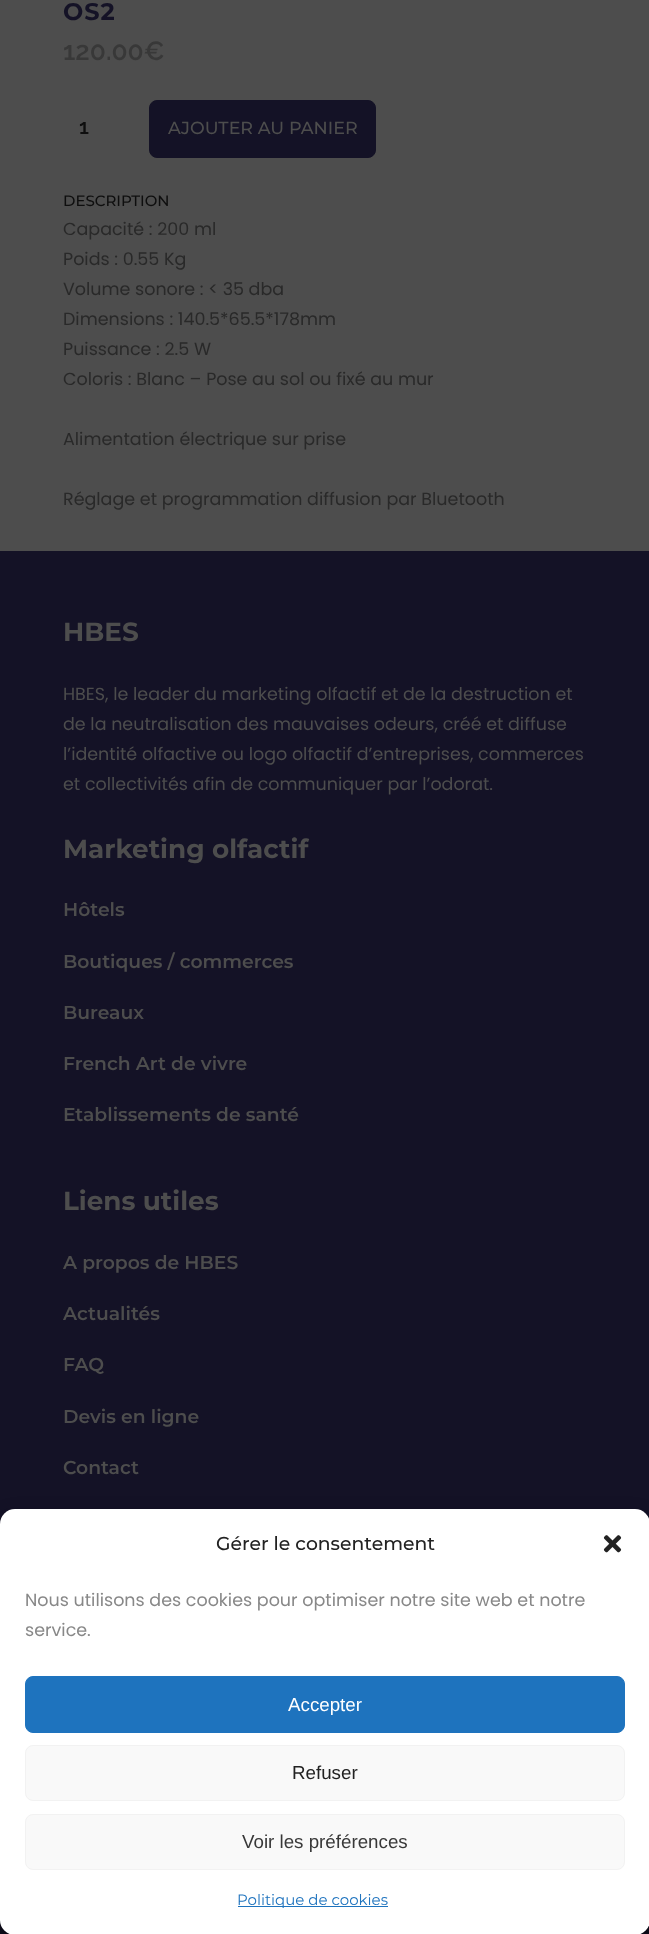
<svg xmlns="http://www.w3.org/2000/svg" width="649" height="1934">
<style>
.a{font:bold 24px Montserrat;letter-spacing:1px;fill:#141226}
.b{font:600 26.25px Raleway;fill:#383838}
.c{font:600 21px Raleway;fill:#0e0e0e}
.d{font:500 17.5px Montserrat;fill:#4d4d4d}
.e{font:500 15px Montserrat;fill:#0e0e0e}
.f{font:17.5px Poppins;fill:#292929}
.g{font:bold 26.25px Montserrat;fill:#4d4d4d}
.h{font:17.5px Poppins;fill:#4d4d4d}
.i{font:600 18.75px Montserrat;fill:#4d4d4d}
.j{font:500 18.75px Montserrat;fill:#222}
.k{font:17.5px Poppins;fill:#888}
.l{font:18.75px Liberation Sans;fill:#fff}
.m{font:18.75px Liberation Sans;fill:#222}
.n{font:18.75px Liberation Sans;fill:#383838}
.o{font:15px Montserrat;fill:#1e73be}
</style>
<rect width="100%" height="100%" fill="#4d4d4d"/>
<rect fill="#141226" stroke="#141226" x="149.5" y="100.5" width="226" height="57" rx="7.5"/>
<path fill="#141226" d="M0 551h649v973H0z"/>
<path fill="#100e1e" d="M0 1920h649v14H0z"/>
<rect fill="#0000003b" filter="blur(4px)" y="1516" width="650" height="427" rx="15"/>
<rect fill="#00000030" filter="blur(12.5px)" y="1521" width="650" height="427" rx="15"/>
<rect fill="#fff" y="1509" width="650" height="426" rx="15"/>
<image href="1.png" x="603" y="1535" width="19" height="18"/>
<rect fill="#1e73be" stroke="#1e73be" x="25.5" y="1676.5" width="599" height="56" rx="7.5"/>
<rect fill="#f9f9f9" stroke="#f2f2f2" x="25.5" y="1745.5" width="599" height="55" rx="7.5"/>
<rect fill="#f9f9f9" stroke="#f2f2f2" x="25.5" y="1814.5" width="599" height="55" rx="7.5"/>
<path fill="#1e73be" d="M238 1906h150v1H238z"/>
<text class="a" x="63" y="20">OS2</text>
<text class="b" x="63" y="60">120.00€</text>
<text class="c" x="79" y="134">1</text>
<text class="d" x="168" y="134">AJOUTER AU PANIER</text>
<text class="e" x="63" y="206">DESCRIPTION</text>
<text class="f" x="63" y="235">Capacité : 200 ml</text>
<text class="f" x="63" y="265">Poids : 0.55 Kg</text>
<text class="f" x="63" y="295">Volume sonore : &lt; 35 dba</text>
<text class="f" x="63" y="325">Dimensions : 140.5*65.5*178mm</text>
<text class="f" x="63" y="355">Puissance : 2.5 W</text>
<text class="f" x="63" y="385">Coloris : Blanc – Pose au sol ou fixé au mur</text>
<text class="f" x="63" y="445">Alimentation électrique sur prise</text>
<text class="f" x="63" y="505">Réglage et programmation diffusion par Bluetooth</text>
<text class="g" x="63" y="641">HBES</text>
<text class="h" x="63" y="700">HBES, le leader du marketing olfactif et de la destruction et</text>
<text class="h" x="63" y="730">de la neutralisation des mauvaises odeurs, créé et diffuse</text>
<text class="h" x="63" y="760">l’identité olfactive ou logo olfactif d’entreprises, commerces</text>
<text class="h" x="63" y="790">et collectivités afin de communiquer par l’odorat.</text>
<text class="g" x="63" y="858">Marketing olfactif</text>
<text class="i" x="63" y="916">Hôtels</text>
<text class="i" x="63" y="968">Boutiques / commerces</text>
<text class="i" x="63" y="1019">Bureaux</text>
<text class="i" x="63" y="1070">French Art de vivre</text>
<text class="i" x="63" y="1121">Etablissements de santé</text>
<text class="g" x="63" y="1210">Liens utiles</text>
<text class="i" x="63" y="1269">A propos de HBES</text>
<text class="i" x="63" y="1320">Actualités</text>
<text class="i" x="63" y="1371">FAQ</text>
<text class="i" x="63" y="1423">Devis en ligne</text>
<text class="i" x="63" y="1474">Contact</text>
<text class="j" x="216" y="1550">Gérer le consentement</text>
<text class="k" x="25" y="1606">Nous utilisons des cookies pour optimiser notre site web et notre</text>
<text class="k" x="25" y="1636">service.</text>
<text class="l" x="288" y="1711">Accepter</text>
<text class="m" x="292" y="1779">Refuser</text>
<text class="n" x="242" y="1848">Voir les préférences</text>
<text class="o" x="237" y="1905">Politique de cookies</text>
</svg>
